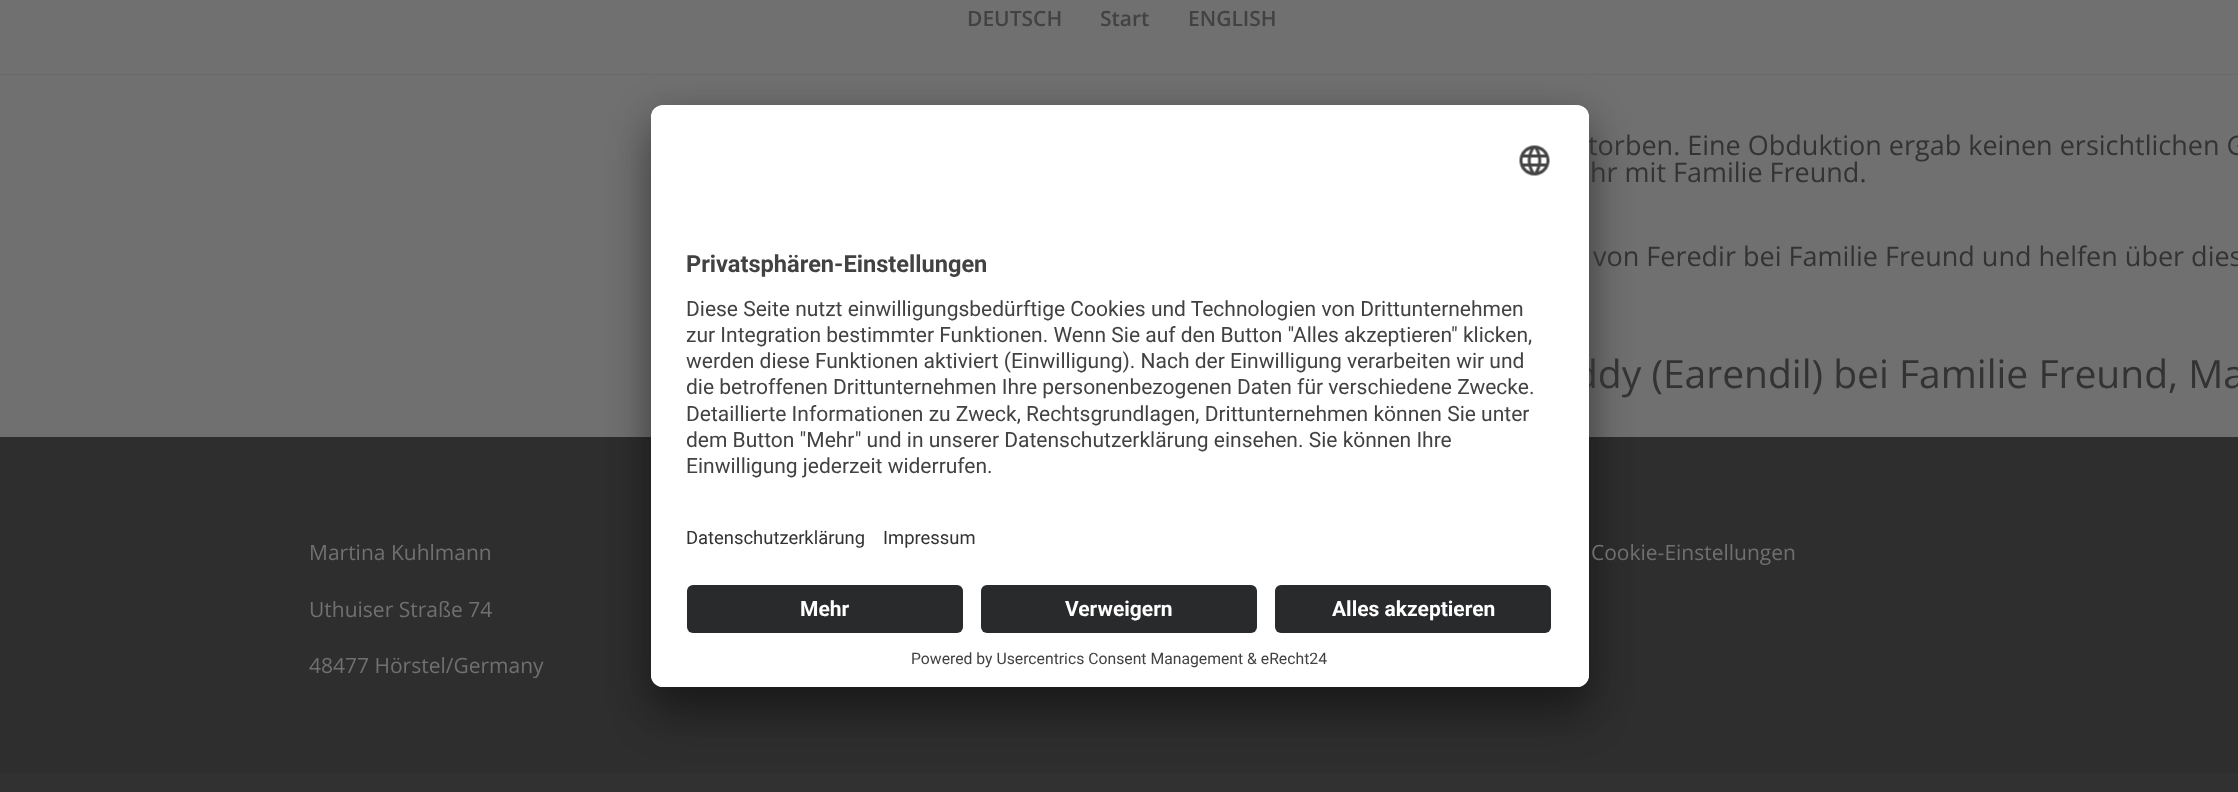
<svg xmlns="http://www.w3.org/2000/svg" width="2238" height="792">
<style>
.a{font:600 21px Open Sans;fill:#424242}
.b{font:27px Open Sans;fill:#333}
.c{font:39px Open Sans;fill:#333}
.d{font:21px Open Sans;fill:#707070}
.e{font:bold 23.6px Roboto;fill:#424242}
.f{font:21px Roboto;fill:#424242}
.g{font:18.4px Roboto;fill:#333}
.h{font:bold 21px Roboto;fill:#fff}
.i{font:15.75px Roboto;fill:#424242}
</style>
<defs>
<clipPath id="clip1"><rect x="651" y="105" width="938" height="582" rx="12"/></clipPath>
<clipPath id="clip2"><path d="M663 105h914c6.5 0 12 5.5 12 12v456h-938v-456c0-6.5 5.5-12 12-12z"/></clipPath>
</defs>
<rect width="100%" height="100%" fill="#2e2e2e"/>
<path fill="#696969" d="M0 74h2238v1H0z"/>
<path fill="#707070" d="M0 0h2238v74H0z"/>
<path fill="#707070" d="M0 75h2238v362H0z"/>
<path fill="#313131" d="M0 773h2238v19H0z"/>
<rect fill="#0000004d" filter="blur(21px)" x="651" y="135" width="938" height="582" rx="12"/>
<rect fill="#00000038" filter="blur(19.5px)" x="651" y="113" width="938" height="582" rx="12"/>
<text class="a" x="967" y="26">DEUTSCH</text>
<text class="a" x="1100" y="26">Start</text>
<text class="a" x="1188" y="26">ENGLISH</text>
<text class="b" x="1588" y="155">torben. Eine Obduktion ergab keinen ersichtlichen G</text>
<text class="b" x="1590" y="182">hr mit Familie Freund.</text>
<text class="b" x="1593" y="266">von Feredir bei Familie Freund und helfen über dies</text>
<text class="c" x="1574" y="388">ddy (Earendil) bei Familie Freund, Ma</text>
<text class="d" x="309" y="560">Martina Kuhlmann</text>
<text class="d" x="309" y="617">Uthuiser Straße 74</text>
<text class="d" x="309" y="673">48477 Hörstel/Germany</text>
<text class="d" x="1591" y="560">Cookie-Einstellungen</text>
<rect fill="#fff" x="651" y="105" width="938" height="582" rx="12"/>
<g clip-path="url(#clip1)">
<g clip-path="url(#clip2)">
<path fill="#fff" d="M651 107h938v466H651z"/>
</g>
</g>
<image href="1.png" x="1519" y="145" width="31" height="31"/>
<text class="e" x="686" y="272">Privatsphären-Einstellungen</text>
<text class="f" x="686" y="316">Diese Seite nutzt einwilligungsbedürftige Cookies und Technologien von Drittunternehmen</text>
<text class="f" x="686" y="342">zur Integration bestimmter Funktionen. Wenn Sie auf den Button "Alles akzeptieren" klicken,</text>
<text class="f" x="686" y="368">werden diese Funktionen aktiviert (Einwilligung). Nach der Einwilligung verarbeiten wir und</text>
<text class="f" x="686" y="394">die betroffenen Drittunternehmen Ihre personenbezogenen Daten für verschiedene Zwecke.</text>
<text class="f" x="686" y="421">Detaillierte Informationen zu Zweck, Rechtsgrundlagen, Drittunternehmen können Sie unter</text>
<text class="f" x="686" y="447">dem Button "Mehr" und in unserer Datenschutzerklärung einsehen. Sie können Ihre</text>
<text class="f" x="686" y="473">Einwilligung jederzeit widerrufen.</text>
<text class="g" x="686" y="544">Datenschutzerklärung</text>
<text class="g" x="883" y="544">Impressum</text>
<path fill="#fff" d="M651 573h938v102c0 6.5-5.5 12-12 12h-914c-6.5 0-12-5.5-12-12z"/>
<rect fill="#292a2b" x="687" y="585" width="276" height="48" rx="6"/>
<text class="h" x="800" y="616">Mehr</text>
<rect fill="#292a2b" x="981" y="585" width="276" height="48" rx="6"/>
<text class="h" x="1065" y="616">Verweigern</text>
<rect fill="#292a2b" x="1275" y="585" width="276" height="48" rx="6"/>
<text class="h" x="1332" y="616">Alles akzeptieren</text>
<text class="i" x="911" y="664">Powered by Usercentrics Consent Management &amp; eRecht24</text>
</svg>
